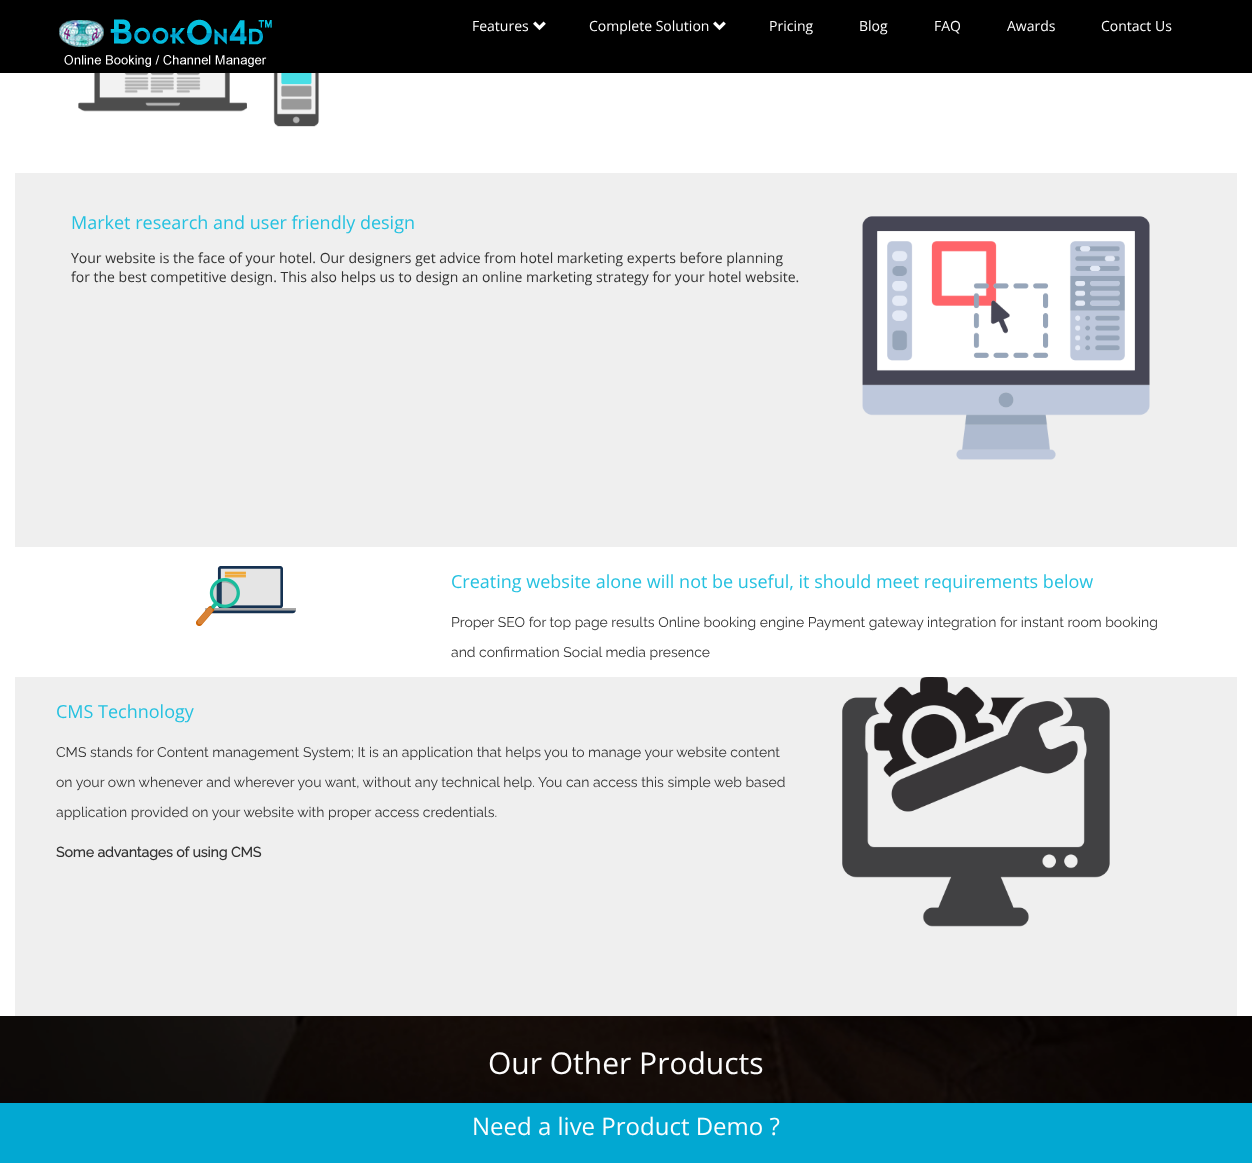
<svg xmlns="http://www.w3.org/2000/svg" width="1252" height="1163">
<style>
.a{font:14px Open Sans;fill:#fdfdfd}
.b{font:18px Open Sans;fill:#25c1e0}
.c{font:14px Open Sans;fill:#333}
.d{font:100 14px Raleway;fill:#333}
.e{font:bold 14px Raleway;fill:#333}
.f{font:30px Open Sans;fill:#fdfdfd}
.g{font:24px Open Sans;fill:#fdfdfd}
</style>
<rect width="100%" height="100%" fill="#fff"/>
<path fill="#000" d="M0 0h1252v73H0z"/>
<image href="1.png" x="59" y="19" width="213" height="48"/>
<image href="2.png" x="533" y="21" width="13" height="10"/>
<image href="2.png" x="713" y="21" width="13" height="10"/>
<image href="3.png" x="78" y="73" width="305" height="54"/>
<path fill="#efefef" d="M15 173h1222v374H15z"/>
<image href="4.png" x="862" y="216" width="288" height="244"/>
<image href="5.png" x="196" y="566" width="100" height="60"/>
<path fill="#efefef" d="M15 677h1222v339H15z"/>
<image href="6.png" x="842" y="677" width="268" height="250"/>
<image href="7.png" x="0" y="1016" width="1252" height="87"/>
<path fill="#02a8d2" d="M0 1103h1252v60H0z"/>
<text class="a" x="472" y="31">Features</text>
<text class="a" x="589" y="31">Complete Solution</text>
<text class="a" x="769" y="31">Pricing</text>
<text class="a" x="859" y="31">Blog</text>
<text class="a" x="934" y="31">FAQ</text>
<text class="a" x="1007" y="31">Awards</text>
<text class="a" x="1101" y="31">Contact Us</text>
<text class="b" x="71" y="229">Market research and user friendly design</text>
<text class="c" x="71" y="263">Your website is the face of your hotel. Our designers get advice from hotel marketing experts before planning</text>
<text class="c" x="71" y="282">for the best competitive design. This also helps us to design an online marketing strategy for your hotel website.</text>
<text class="b" x="451" y="588">Creating website alone will not be useful, it should meet requirements below</text>
<text class="d" x="451" y="627">Proper SEO for top page results Online booking engine Payment gateway integration for instant room booking</text>
<text class="d" x="451" y="657">and confirmation Social media presence</text>
<text class="b" x="56" y="718">CMS Technology</text>
<text class="d" x="56" y="757">CMS stands for Content management System; It is an application that helps you to manage your website content</text>
<text class="d" x="56" y="787">on your own whenever and wherever you want, without any technical help. You can access this simple web based</text>
<text class="d" x="56" y="817">application provided on your website with proper access credentials.</text>
<text class="e" x="56" y="857">Some advantages of using CMS</text>
<text class="f" x="488" y="1074">Our Other Products</text>
<text class="g" x="472" y="1135">Need a live Product Demo ?</text>
</svg>
